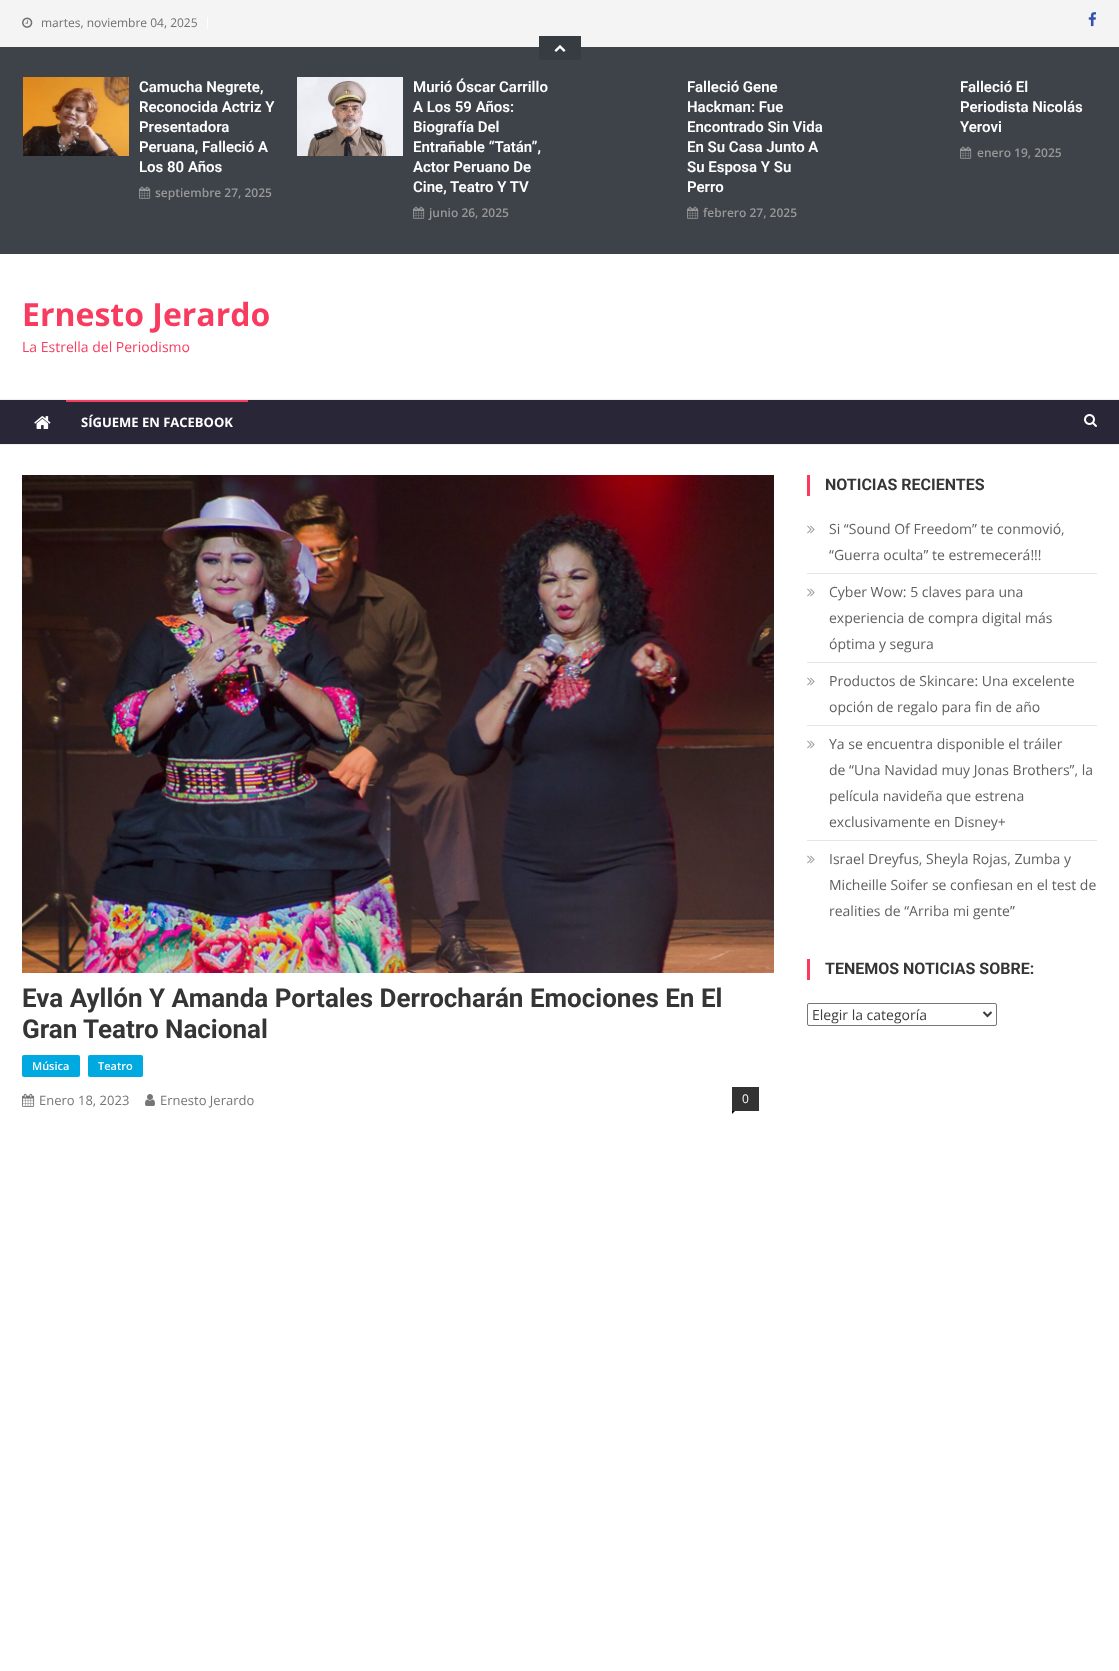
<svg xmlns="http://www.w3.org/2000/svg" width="1119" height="1671">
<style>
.a{font:12px Open Sans;fill:#707070}
.b{font:600 15px Roboto;fill:#fff}
.c{font:600 12px Open Sans;fill:#989898}
.d{font:bold 32px Open Sans;fill:#f83c5f}
.e{font:14px Open Sans;fill:#f83c5f}
.f{font:bold 13px Open Sans;fill:#fff}
.g{font:bold 16px Roboto;fill:#353535}
.h{font:14px Open Sans;fill:#5f5f5f}
.i{font:14px Open Sans;fill:#3d3d3d}
.j{font:bold 26px Roboto;fill:#353535}
.k{font:600 11px Open Sans;fill:#fff}
.l{font:13px Open Sans;fill:#767676}
.m{font:12px Open Sans;fill:#fff}
</style>
<rect width="100%" height="100%" fill="#fff"/>
<path fill="#f4f4f4" d="M0 0h1119v47H0z"/>
<image href="1.png" x="22" y="17" width="11" height="11"/>
<path fill="#fff" d="M207 17h1v12H207z"/>
<image href="2.png" x="1088" y="12" width="9" height="15"/>
<path fill="#3e4349" d="M0 47h1119v207H0z"/>
<path fill="#373c42" d="M539 36h42v21c0 1.5-1.5 3-3 3h-36c-1.5 0-3-1.5-3-3z"/>
<image href="3.png" x="554" y="45" width="12" height="7"/>
<image href="4.png" x="23" y="77" width="106" height="79"/>
<image href="5.png" x="139" y="186" width="12" height="13"/>
<image href="6.png" x="297" y="77" width="106" height="79"/>
<image href="5.png" x="413" y="206" width="12" height="13"/>
<image href="5.png" x="687" y="206" width="12" height="13"/>
<image href="5.png" x="960" y="146" width="12" height="13"/>
<path fill="#292637" d="M0 400h1119v44H0z"/>
<path fill="#eee" d="M0 399h1119v1H0z"/>
<path fill="#eee" d="M0 444h1119v1H0z"/>
<image href="7.png" x="34" y="416" width="17" height="13"/>
<path fill="#f83c5f" d="M66 400h182v2H66z"/>
<image href="8.png" x="1084" y="414" width="13" height="13"/>
<path fill="#f83c5f" d="M807 475h3v21H807z"/>
<path fill="#e6e6e6" d="M807 573h290v1H807z"/>
<image href="9.png" x="807" y="525" width="8" height="9"/>
<path fill="#e6e6e6" d="M807 662h290v1H807z"/>
<image href="9.png" x="807" y="588" width="8" height="9"/>
<path fill="#e6e6e6" d="M807 725h290v1H807z"/>
<image href="9.png" x="807" y="677" width="8" height="9"/>
<path fill="#e6e6e6" d="M807 840h290v1H807z"/>
<image href="9.png" x="807" y="740" width="8" height="9"/>
<image href="9.png" x="807" y="855" width="8" height="9"/>
<path fill="#f83c5f" d="M807 959h3v21H807z"/>
<rect fill="none" stroke="#767676" x="807.5" y="1003.5" width="189" height="22" rx="1.5"/>
<path fill="none" stroke="#3d3d3d" stroke-width="2" d="M983.5 1012l4 4l4-4"/>
<image href="10.png" x="22" y="475" width="752" height="498"/>
<rect fill="#00a9e0" x="22" y="1055" width="58" height="22" rx="2"/>
<rect fill="#00a9e0" x="88" y="1055" width="55" height="22" rx="2"/>
<image href="11.png" x="22" y="1093" width="13" height="14"/>
<image href="12.png" x="145" y="1094" width="10" height="12"/>
<path fill="#333" d="M732 1087h27v24H732z"/>
<path fill="#000" d="M732 1111h3l-3 3z"/>
<text class="a" x="41" y="27">martes, noviembre 04, 2025</text>
<text class="b" x="139" y="92">Camucha Negrete,</text>
<text class="b" x="139" y="112">Reconocida Actriz Y</text>
<text class="b" x="139" y="132">Presentadora</text>
<text class="b" x="139" y="152">Peruana, Falleció A</text>
<text class="b" x="139" y="172">Los 80 Años</text>
<text class="c" x="155" y="197">septiembre 27, 2025</text>
<text class="b" x="413" y="92">Murió Óscar Carrillo</text>
<text class="b" x="413" y="112">A Los 59 Años:</text>
<text class="b" x="413" y="132">Biografía Del</text>
<text class="b" x="413" y="152">Entrañable “Tatán”,</text>
<text class="b" x="413" y="172">Actor Peruano De</text>
<text class="b" x="413" y="192">Cine, Teatro Y TV</text>
<text class="c" x="429" y="217">junio 26, 2025</text>
<text class="b" x="687" y="92">Falleció Gene</text>
<text class="b" x="687" y="112">Hackman: Fue</text>
<text class="b" x="687" y="132">Encontrado Sin Vida</text>
<text class="b" x="687" y="152">En Su Casa Junto A</text>
<text class="b" x="687" y="172">Su Esposa Y Su</text>
<text class="b" x="687" y="192">Perro</text>
<text class="c" x="703" y="217">febrero 27, 2025</text>
<text class="b" x="960" y="92">Falleció El</text>
<text class="b" x="960" y="112">Periodista Nicolás</text>
<text class="b" x="960" y="132">Yerovi</text>
<text class="c" x="977" y="157">enero 19, 2025</text>
<text class="d" x="22" y="326">Ernesto Jerardo</text>
<text class="e" x="22" y="352">La Estrella del Periodismo</text>
<text class="f" x="81" y="427">SÍGUEME EN FACEBOOK</text>
<text class="g" x="825" y="490">NOTICIAS RECIENTES</text>
<text class="h" x="829" y="534">Si “Sound Of Freedom” te conmovió,</text>
<text class="h" x="829" y="560">“Guerra oculta” te estremecerá!!!</text>
<text class="h" x="829" y="597">Cyber Wow: 5 claves para una</text>
<text class="h" x="829" y="623">experiencia de compra digital más</text>
<text class="h" x="829" y="649">óptima y segura</text>
<text class="h" x="829" y="686">Productos de Skincare: Una excelente</text>
<text class="h" x="829" y="712">opción de regalo para fin de año</text>
<text class="h" x="829" y="749">Ya se encuentra disponible el tráiler</text>
<text class="h" x="829" y="775">de “Una Navidad muy Jonas Brothers”, la</text>
<text class="h" x="829" y="801">película navideña que estrena</text>
<text class="h" x="829" y="827">exclusivamente en Disney+</text>
<text class="h" x="829" y="864">Israel Dreyfus, Sheyla Rojas, Zumba y</text>
<text class="h" x="829" y="890">Micheille Soifer se confiesan en el test de</text>
<text class="h" x="829" y="916">realities de “Arriba mi gente”</text>
<text class="g" x="825" y="974">TENEMOS NOTICIAS SOBRE:</text>
<text class="i" x="812" y="1020">Elegir la categoría</text>
<text class="j" x="22" y="1007">Eva Ayllón Y Amanda Portales Derrocharán Emociones En El</text>
<text class="j" x="22" y="1038">Gran Teatro Nacional</text>
<text class="k" x="32" y="1070">Música</text>
<text class="k" x="98" y="1070">Teatro</text>
<text class="l" x="39" y="1105">Enero 18, 2023</text>
<text class="l" x="160" y="1105">Ernesto Jerardo</text>
<text class="m" x="742" y="1103">0</text>
</svg>
